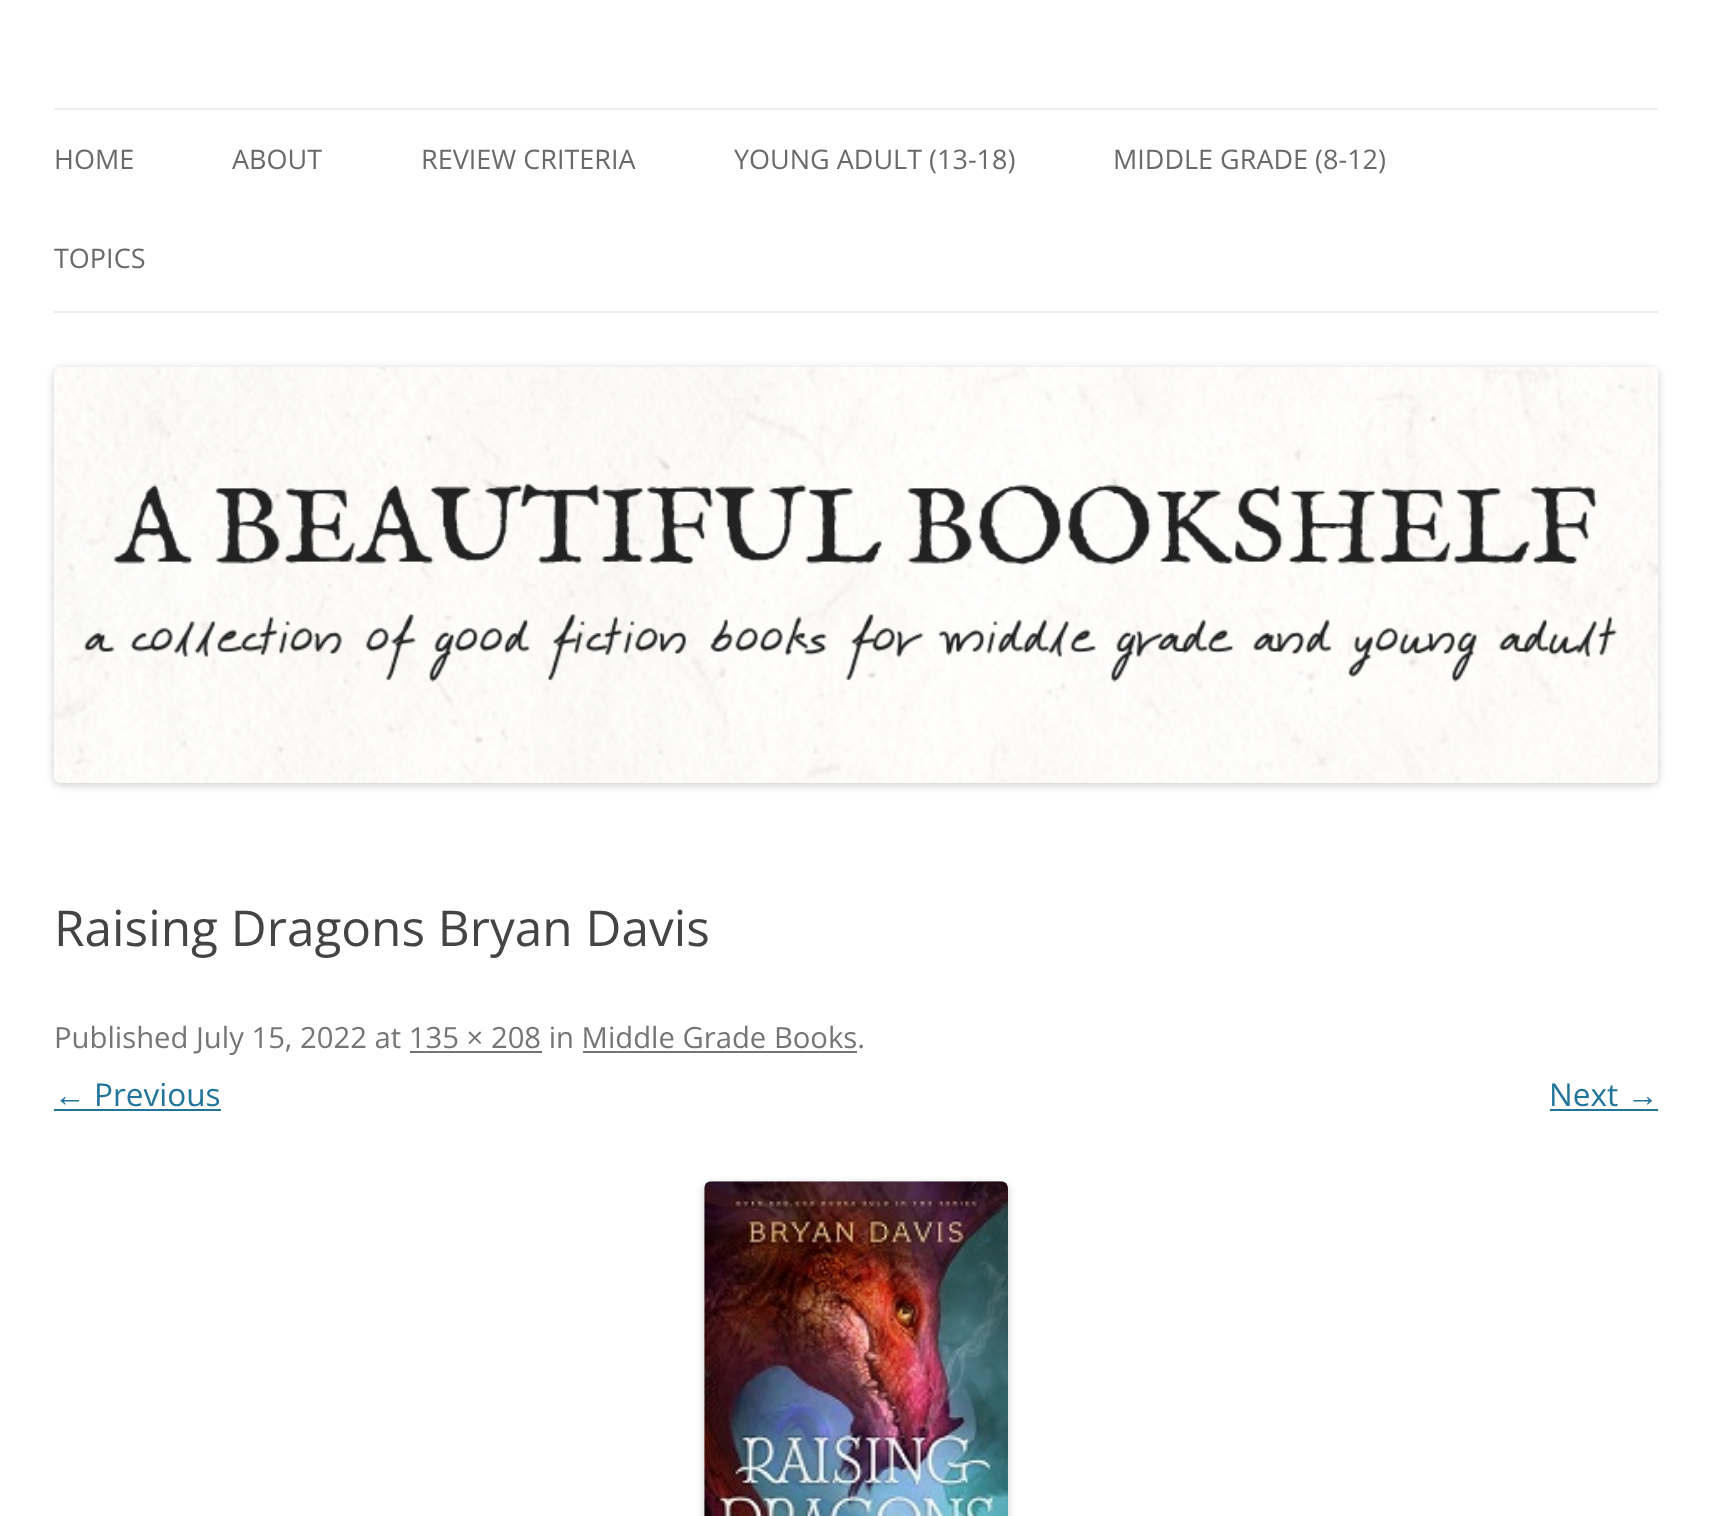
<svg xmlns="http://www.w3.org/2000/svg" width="1712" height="1516">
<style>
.a{font:27px Open Sans;fill:#6a6a6a}
.b{font:49.5px Open Sans;fill:#444}
.c{font:29.25px Open Sans;fill:#757575}
.d{font:31.5px Liberation Sans;fill:#21759b}
.e{font:31.5px Open Sans;fill:#21759b}
</style>
<rect width="100%" height="100%" fill="#fff"/>
<path fill="#ededed" d="M54 108h1604v2H54z"/>
<path fill="#ededed" d="M54 311h1604v2H54z"/>
<rect fill="#00000033" filter="blur(4.5px)" x="54" y="369" width="1604" height="416" rx="7"/>
<image href="1.png" x="54" y="367" width="1604" height="416"/>
<path fill="#757575" d="M410 1051h132v2H410z"/>
<path fill="#757575" d="M583 1051h274v2H583z"/>
<path fill="#21759b" d="M54 1109h167v2H54z"/>
<path fill="#21759b" d="M1550 1109h108v2H1550z"/>
<rect fill="#00000033" filter="blur(4.5px)" x="704" y="1184" width="304" height="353" rx="7"/>
<image href="2.png" x="704" y="1181" width="304" height="335"/>
<text class="a" x="54" y="169">HOME</text>
<text class="a" x="232" y="169">ABOUT</text>
<text class="a" x="421" y="169">REVIEW CRITERIA</text>
<text class="a" x="734" y="169">YOUNG ADULT (13-18)</text>
<text class="a" x="1113" y="169">MIDDLE GRADE (8-12)</text>
<text class="a" x="54" y="268">TOPICS</text>
<text class="b" x="54" y="946">Raising Dragons Bryan Davis</text>
<text class="c" x="54" y="1048">Published July 15, 2022 at 135 × 208 in Middle Grade Books.</text>
<text class="d" x="54" y="1106">←</text>
<text class="e" x="94" y="1106">Previous</text>
<text class="e" x="1549" y="1106">Next</text>
<text class="d" x="1627" y="1106">→</text>
</svg>
